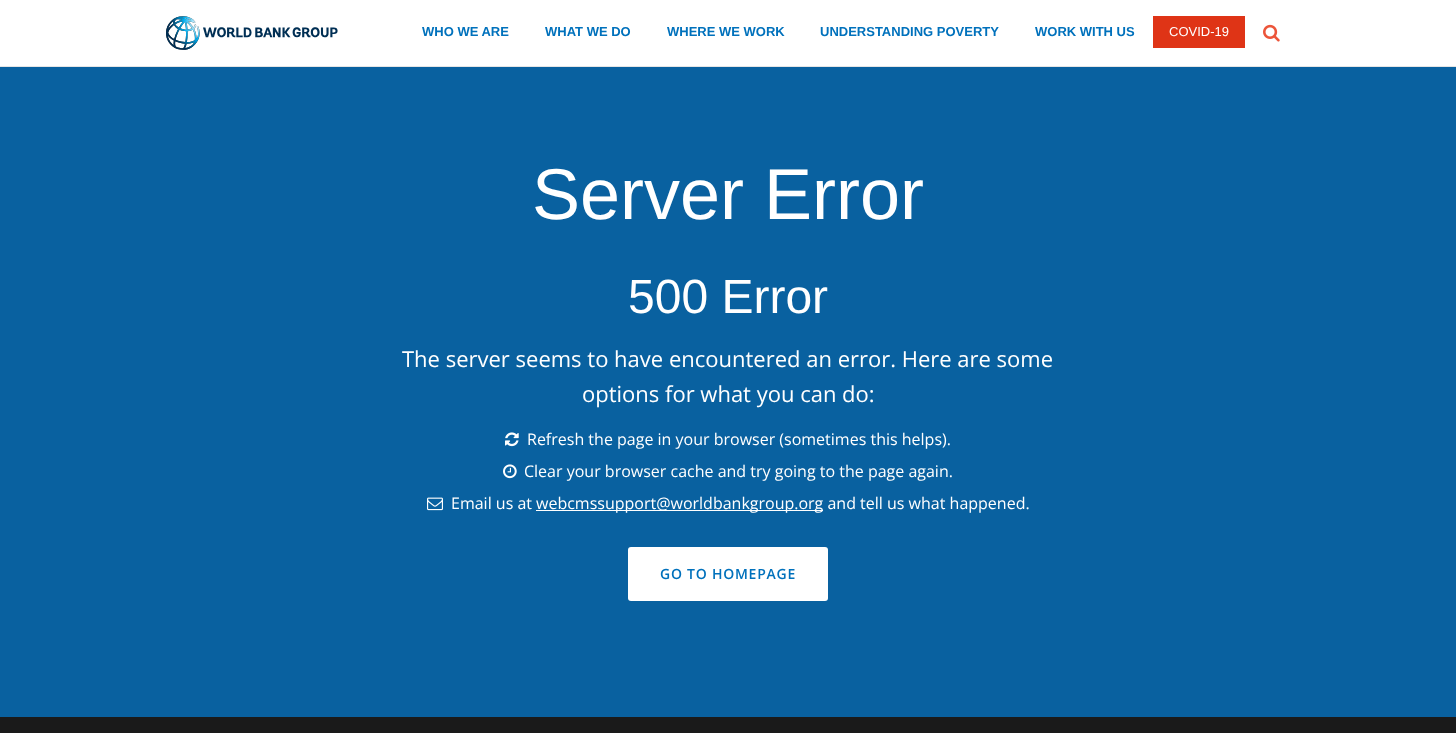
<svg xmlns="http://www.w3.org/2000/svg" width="1456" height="733">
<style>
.a{font:bold 13px Liberation Sans;fill:#0071bc}
.b{font:13px Liberation Sans;fill:#fff}
.c{font:72px Liberation Sans;fill:#fff}
.d{font:48px Liberation Sans;fill:#fff}
.e{font:22px Open Sans;fill:#fff}
.f{font:16px Open Sans;fill:#fff}
.g{font:600 14px Open Sans;letter-spacing:0.75px;fill:#0071bc}
</style>
<rect width="100%" height="100%" fill="#fff"/>
<path fill="#e5e5e5" d="M0 66h1456v1H0z"/>
<image href="1.png" x="166" y="16" width="172" height="34"/>
<path fill="#df3416" d="M1153 16h92v32H1153z"/>
<image href="2.png" x="1263" y="24" width="17" height="18"/>
<path fill="#0961a0" d="M0 67h1456v650H0z"/>
<image href="3.png" x="505" y="432" width="14" height="15"/>
<image href="4.png" x="503" y="464" width="14" height="15"/>
<image href="5.png" x="427" y="497" width="16" height="14"/>
<path fill="#fff" d="M536 510h287v1H536z"/>
<rect fill="#fff" x="628" y="547" width="200" height="54" rx="3"/>
<path fill="#1a1a1a" d="M0 717h1456v16H0z"/>
<text class="a" x="422" y="36">WHO WE ARE</text>
<text class="a" x="545" y="36">WHAT WE DO</text>
<text class="a" x="667" y="36">WHERE WE WORK</text>
<text class="a" x="820" y="36">UNDERSTANDING POVERTY</text>
<text class="a" x="1035" y="36">WORK WITH US</text>
<text class="b" x="1169" y="36">COVID-19</text>
<text class="c" x="532" y="219">Server Error</text>
<text class="d" x="628" y="313">500 Error</text>
<text class="e" x="402" y="367">The server seems to have encountered an error. Here are some</text>
<text class="e" x="582" y="402">options for what you can do:</text>
<text class="f" x="527" y="445">Refresh the page in your browser (sometimes this helps).</text>
<text class="f" x="524" y="477">Clear your browser cache and try going to the page again.</text>
<text class="f" x="451" y="509">Email us at</text>
<text class="f" x="536" y="509">webcmssupport@worldbankgroup.org and tell us what happened.</text>
<text class="g" x="660" y="579">GO TO HOMEPAGE</text>
</svg>
